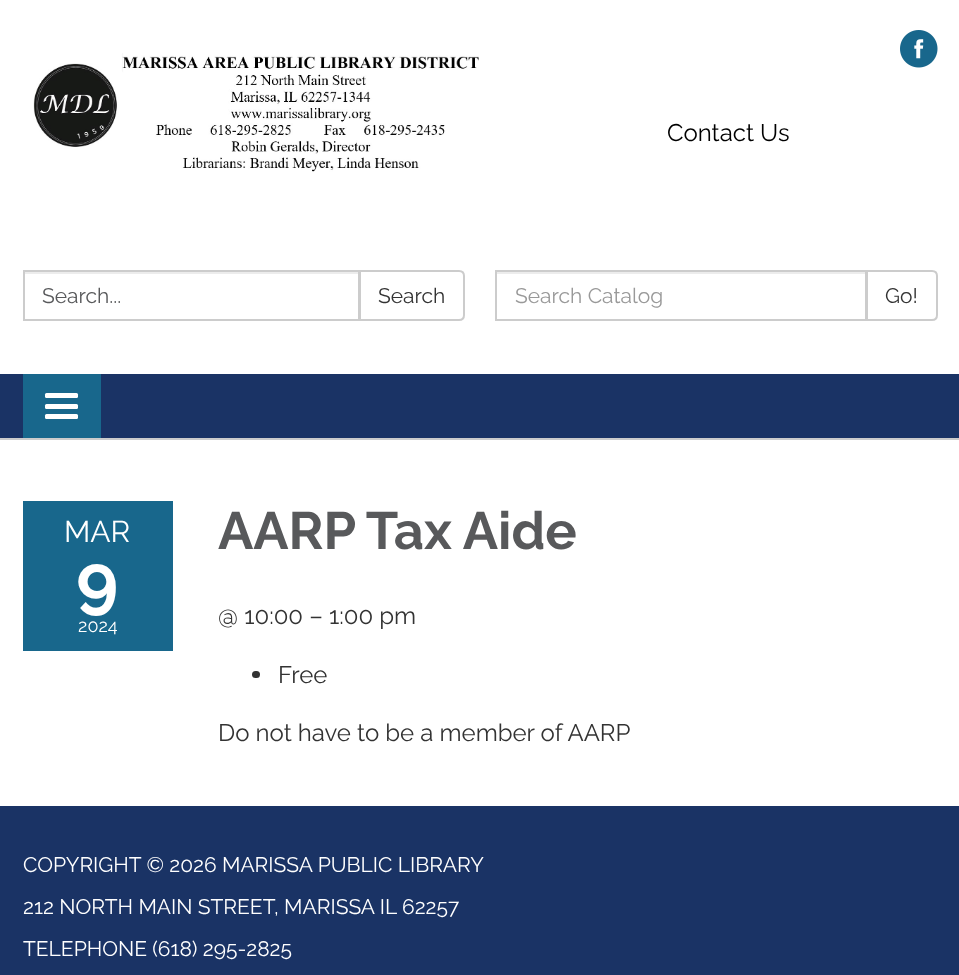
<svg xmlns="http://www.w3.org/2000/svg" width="959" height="975">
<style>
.a{font:24px Raleway;fill:#000}
.b{font:21px Raleway;fill:#58595b}
.c{font:21px Raleway;fill:#333}
.d{font:21px Raleway;fill:#999}
.e{font:30px Raleway;fill:#fff}
.f{font:bold 72px Raleway;fill:#fff}
.g{font:18px Raleway;fill:#fff}
.h{font:bold 52.5px Raleway;fill:#58595b}
.i{font:24px Raleway;fill:#333}
.j{font:21px Raleway;fill:#fff}
</style>
<rect width="100%" height="100%" fill="#1a3365"/>
<path fill="#fff" d="M0 0h959v374H0z"/>
<image href="1.png" x="900" y="30" width="38" height="38"/>
<image href="2.png" x="33" y="53" width="446" height="119"/>
<path fill="#ececec" d="M24 272h335v2H24z"/>
<path fill="none" stroke="#ccc" stroke-width="2" d="M24 271h335v49H24z"/>
<path fill="#fff" stroke="#ccc" stroke-width="2" d="M360 271h99c3 0 5 2 5 5v39c0 3-2 5-5 5h-99z"/>
<path fill="#ececec" d="M497 272h369v2H497z"/>
<path fill="none" stroke="#ccc" stroke-width="2" d="M496 271h370v49H496z"/>
<path fill="#fff" stroke="#ccc" stroke-width="2" d="M867 271h65c3 0 5 2 5 5v39c0 3-2 5-5 5h-65z"/>
<path fill="#18678c" d="M23 374h78v64H23z"/>
<rect fill="#fff" x="45" y="393" width="33" height="5" rx="1.5"/>
<rect fill="#fff" x="45" y="404" width="33" height="5" rx="1.5"/>
<rect fill="#fff" x="45" y="414" width="33" height="5" rx="1.5"/>
<path fill="#fff" d="M0 440h959v366H0z"/>
<path fill="#ccc" d="M0 438h959v2H0z"/>
<path fill="#18678c" d="M23 501h150v150H23z"/>
<rect fill="#333" x="252" y="671" width="8" height="7" rx="3.5"/>
<text class="a" x="667" y="141">Contact Us</text>
<text class="b" x="42" y="303">Search...</text>
<text class="c" x="378" y="303">Search</text>
<text class="d" x="515" y="303">Search Catalog</text>
<text class="c" x="885" y="303">Go!</text>
<text class="e" x="64" y="542">MAR</text>
<text class="f" x="76" y="605">9</text>
<text class="g" x="78" y="632">2024</text>
<text class="h" x="218" y="549">AARP Tax Aide</text>
<text class="i" x="218" y="624">@ 10:00 – 1:00 pm</text>
<text class="i" x="278" y="683">Free</text>
<text class="i" x="218" y="741">Do not have to be a member of AARP</text>
<text class="j" x="23" y="872">COPYRIGHT © 2026 MARISSA PUBLIC LIBRARY</text>
<text class="j" x="23" y="914">212 NORTH MAIN STREET, MARISSA IL 62257</text>
<text class="j" x="23" y="956">TELEPHONE (618) 295-2825</text>
</svg>
